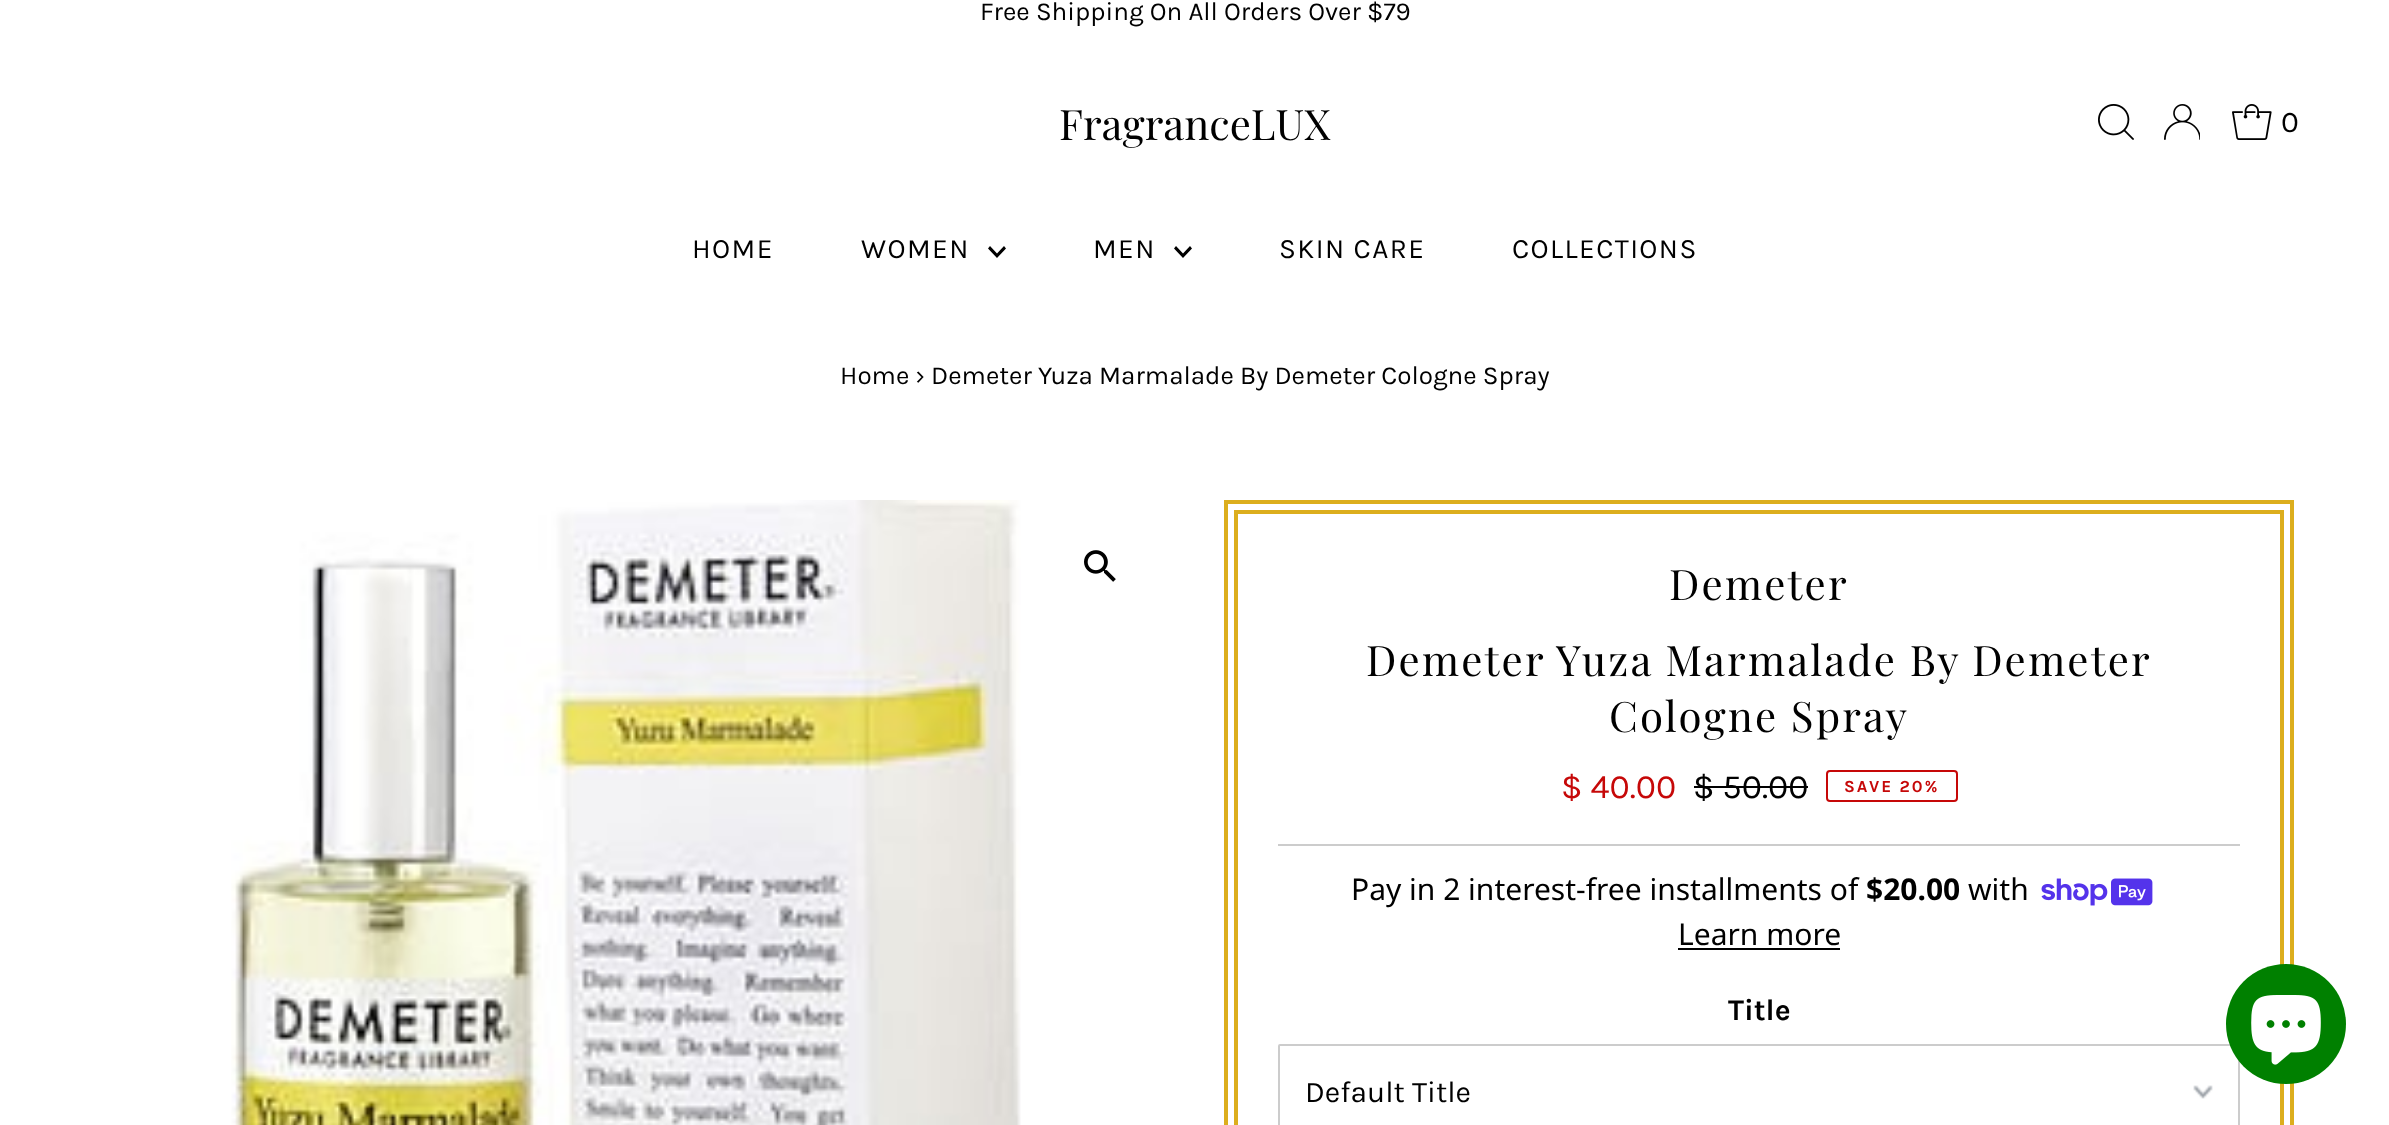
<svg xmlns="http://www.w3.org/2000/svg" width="2389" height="1125">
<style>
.a{font:26px Karla;fill:#000}
.b{font:42px Playfair Display;fill:#000}
.c{font:30px Karla;fill:#000}
.d{font:28px Karla;letter-spacing:1.4px;fill:#000}
.e{font:42px Playfair Display;letter-spacing:2.1px;fill:#000}
.f{font:34px Karla;fill:#c60808}
.g{font:34px Karla;fill:#000}
.h{font:bold 17px Karla;letter-spacing:2px;fill:#c60808}
.i{font:30px Noto Sans;fill:#000}
.j{font:bold 30px Noto Sans;fill:#000}
.k{font:bold 30px Karla;fill:#000}
</style>
<rect width="100%" height="100%" fill="#fff"/>
<image href="1.png" x="2098" y="104" width="36" height="36"/>
<image href="2.png" x="2164" y="104" width="36" height="36"/>
<image href="3.png" x="2232" y="104" width="40" height="36"/>
<path fill="#000" d="M1004 246l-7 7.5l-7-7.5l-2 2.5l9 9.5l9-9.5z"/>
<path fill="#000" d="M1190 246l-7 7.5l-7-7.5l-2 2.5l9 9.5l9-9.5z"/>
<image href="4.png" x="231" y="500" width="790" height="625"/>
<image href="5.png" x="1084" y="550" width="32" height="32"/>
<path fill="none" stroke="#dcae1d" stroke-width="4" d="M1226 502h1066v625H1226z"/>
<path fill="none" stroke="#dcae1d" stroke-width="4" d="M1236 512h1046v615H1236z"/>
<path fill="#ccc" d="M1278 844h962v2H1278z"/>
<path fill="#000" d="M1694 786h114v2H1694z"/>
<rect fill="none" stroke="#c60808" stroke-width="2" x="1827" y="771" width="130" height="30" rx="3"/>
<image href="6.png" x="2041" y="878" width="112" height="28"/>
<path fill="#000" d="M1678 948h162v2H1678z"/>
<image href="7.png" x="2193" y="1085" width="20" height="14"/>
<rect fill="none" stroke="#ccc" stroke-width="2" x="1279" y="1045" width="960" height="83" rx="1"/>
<circle fill="#008000" cx="2286" cy="1024" r="60"/>
<image href="8.png" x="2251" y="995" width="70" height="70"/>
<text class="a" x="980" y="20">Free Shipping On All Orders Over $79</text>
<text class="b" x="1059" y="140">FragranceLUX</text>
<text class="c" x="2281" y="132">0</text>
<text class="d" x="692" y="258">HOME</text>
<text class="d" x="861" y="258">WOMEN</text>
<text class="d" x="1093" y="258">MEN</text>
<text class="d" x="1279" y="258">SKIN CARE</text>
<text class="d" x="1512" y="258">COLLECTIONS</text>
<text class="a" x="840" y="384">Home › Demeter Yuza Marmalade By Demeter Cologne Spray</text>
<text class="e" x="1669" y="600">Demeter</text>
<text class="e" x="1366" y="676">Demeter Yuza Marmalade By Demeter</text>
<text class="e" x="1609" y="732">Cologne Spray</text>
<text class="f" x="1561" y="798">$ 40.00</text>
<text class="g" x="1693" y="798">$ 50.00</text>
<text class="h" x="1844" y="792">SAVE 20%</text>
<text class="i" x="1351" y="900">Pay in 2 interest-free installments of</text>
<text class="j" x="1866" y="900">$20.00</text>
<text class="i" x="1968" y="900">with</text>
<text class="i" x="1678" y="945">Learn more</text>
<text class="k" x="1728" y="1020">Title</text>
<text class="c" x="1305" y="1102">Default Title</text>
</svg>
